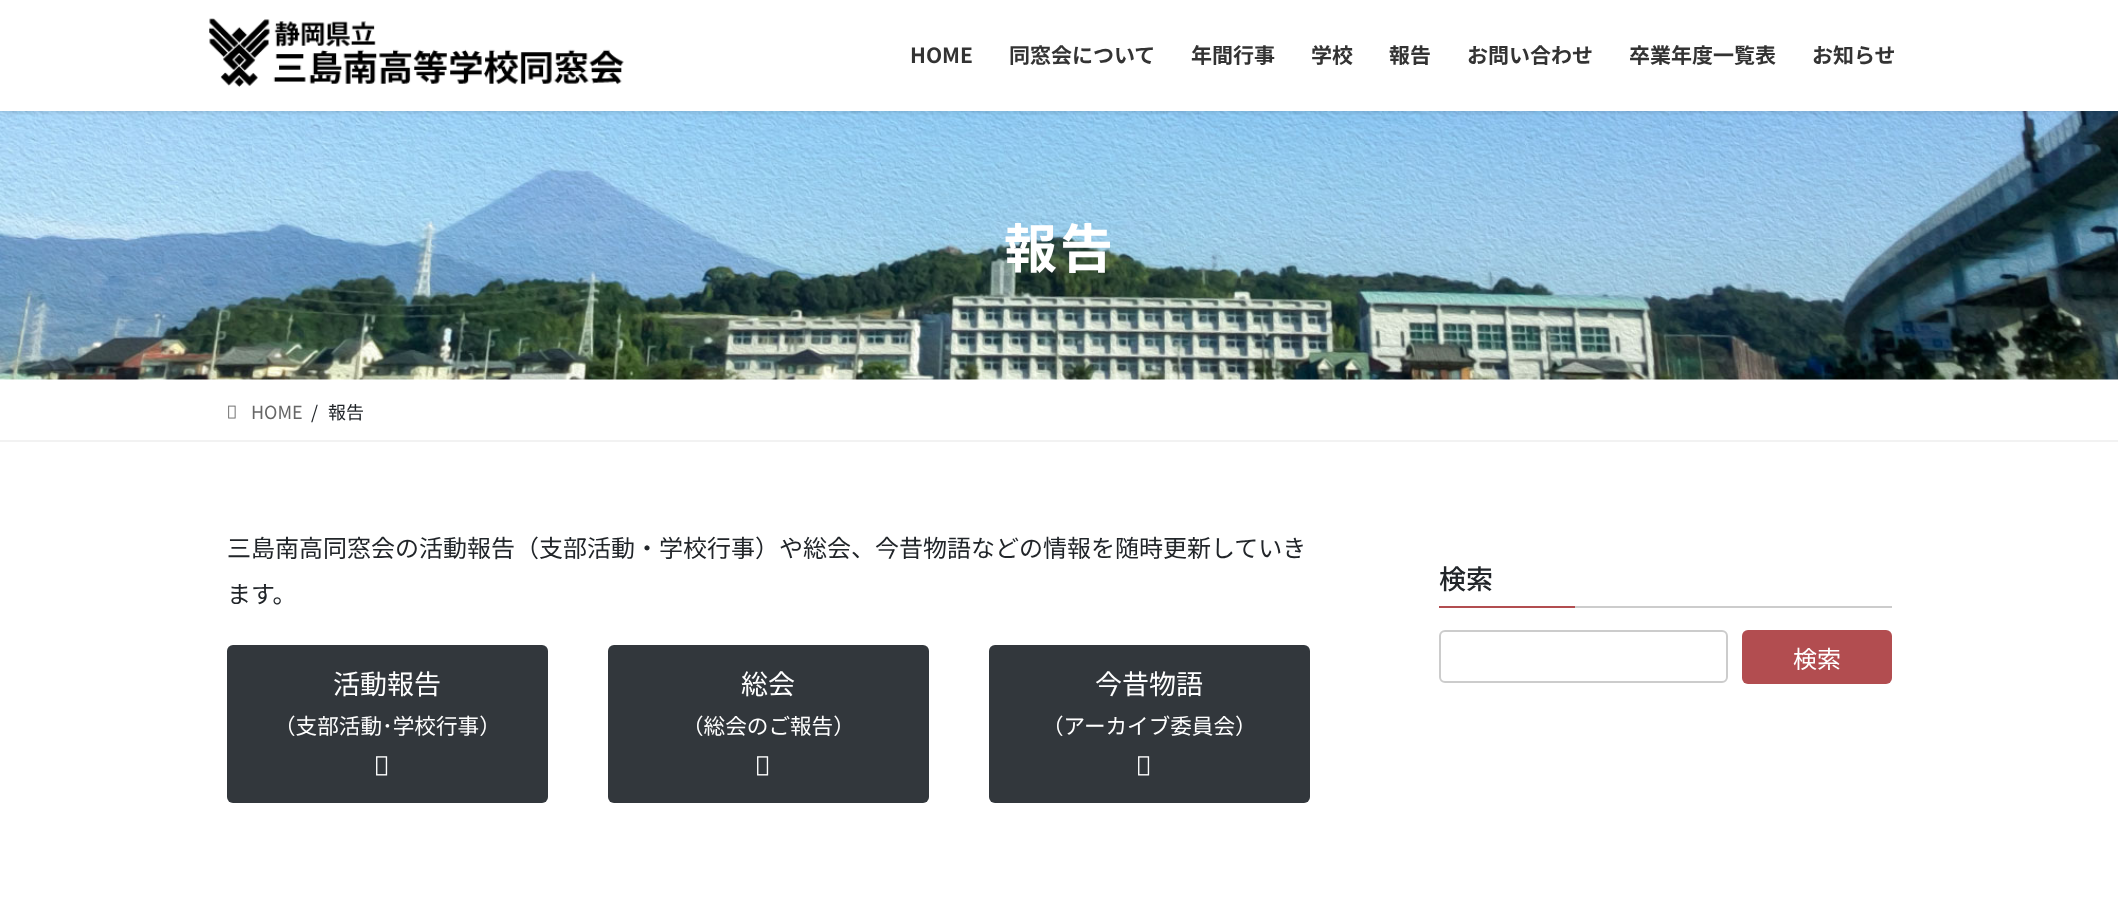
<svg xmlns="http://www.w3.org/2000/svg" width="2118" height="898">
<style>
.a{font:bold 21px Noto Sans JP;fill:#333}
.b{font:bold 53px Noto Sans JP;letter-spacing:3px;fill:#fff}
.c{font:18px Noto Sans JP;fill:#666}
.d{font:18px Noto Sans JP;fill:#212529}
.e{font:24px Noto Sans JP;fill:#212529}
.f{font:27px Noto Sans JP;fill:#fff}
.g{font:21.6px Noto Sans JP;fill:#fff}
.h{font:500 27px Noto Sans JP;fill:#212529}
.i{font:24px Noto Sans JP;fill:#fff}
</style>
<defs>
<clipPath id="clip1"><path d="M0 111h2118v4H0z"/></clipPath>
</defs>
<rect width="100%" height="100%" fill="#fff"/>
<image href="2.png" x="0" y="111" width="2118" height="269"/>
<g clip-path="url(#clip1)">
<path fill="#0000001a" filter="blur(2px)" d="M0 2h2118v111H0z"/>
</g>
<image href="1.png" x="209" y="18" width="415" height="69"/>
<path fill="#f2f2f2" d="M0 440h2118v2H0z"/>
<image href="3.png" x="228" y="405" width="8" height="14"/>
<rect fill="#32373c" x="227" y="645" width="321" height="158" rx="6"/>
<image href="4.png" x="376" y="756" width="12" height="20"/>
<rect fill="#32373c" x="608" y="645" width="321" height="158" rx="6"/>
<image href="4.png" x="757" y="756" width="12" height="20"/>
<rect fill="#32373c" x="989" y="645" width="321" height="158" rx="6"/>
<image href="4.png" x="1138" y="756" width="12" height="20"/>
<path fill="#ccc" d="M1575 606h317v2H1575z"/>
<path fill="#b24d50" d="M1439 606h136v2H1439z"/>
<rect fill="none" stroke="#ccc" stroke-width="2" x="1440" y="631" width="287" height="51" rx="5"/>
<rect fill="#b24d50" x="1742" y="630" width="150" height="54" rx="6"/>
<text class="a" x="910" y="63">HOME</text>
<text class="a" x="1009" y="63">同窓会について</text>
<text class="a" x="1191" y="63">年間行事</text>
<text class="a" x="1311" y="63">学校</text>
<text class="a" x="1389" y="63">報告</text>
<text class="a" x="1467" y="63">お問い合わせ</text>
<text class="a" x="1629" y="63">卒業年度一覧表</text>
<text class="a" x="1812" y="63">お知らせ</text>
<text class="b" x="1004" y="268">報告</text>
<text class="c" x="251" y="419">HOME</text>
<text class="d" x="311" y="419">/</text>
<text class="d" x="328" y="419">報告</text>
<text class="e" x="227" y="557">三島南高同窓会の活動報告（支部活動・学校行事）や総会、今昔物語などの情報を随時更新していき</text>
<text class="e" x="227" y="603">ます。</text>
<text class="f" x="333" y="694">活動報告</text>
<text class="g" x="274" y="734">（支部活動･学校行事）</text>
<text class="f" x="741" y="694">総会</text>
<text class="g" x="682" y="734">（総会のご報告）</text>
<text class="f" x="1095" y="694">今昔物語</text>
<text class="g" x="1042" y="734">（アーカイブ委員会）</text>
<text class="h" x="1439" y="589">検索</text>
<text class="i" x="1793" y="668">検索</text>
</svg>
